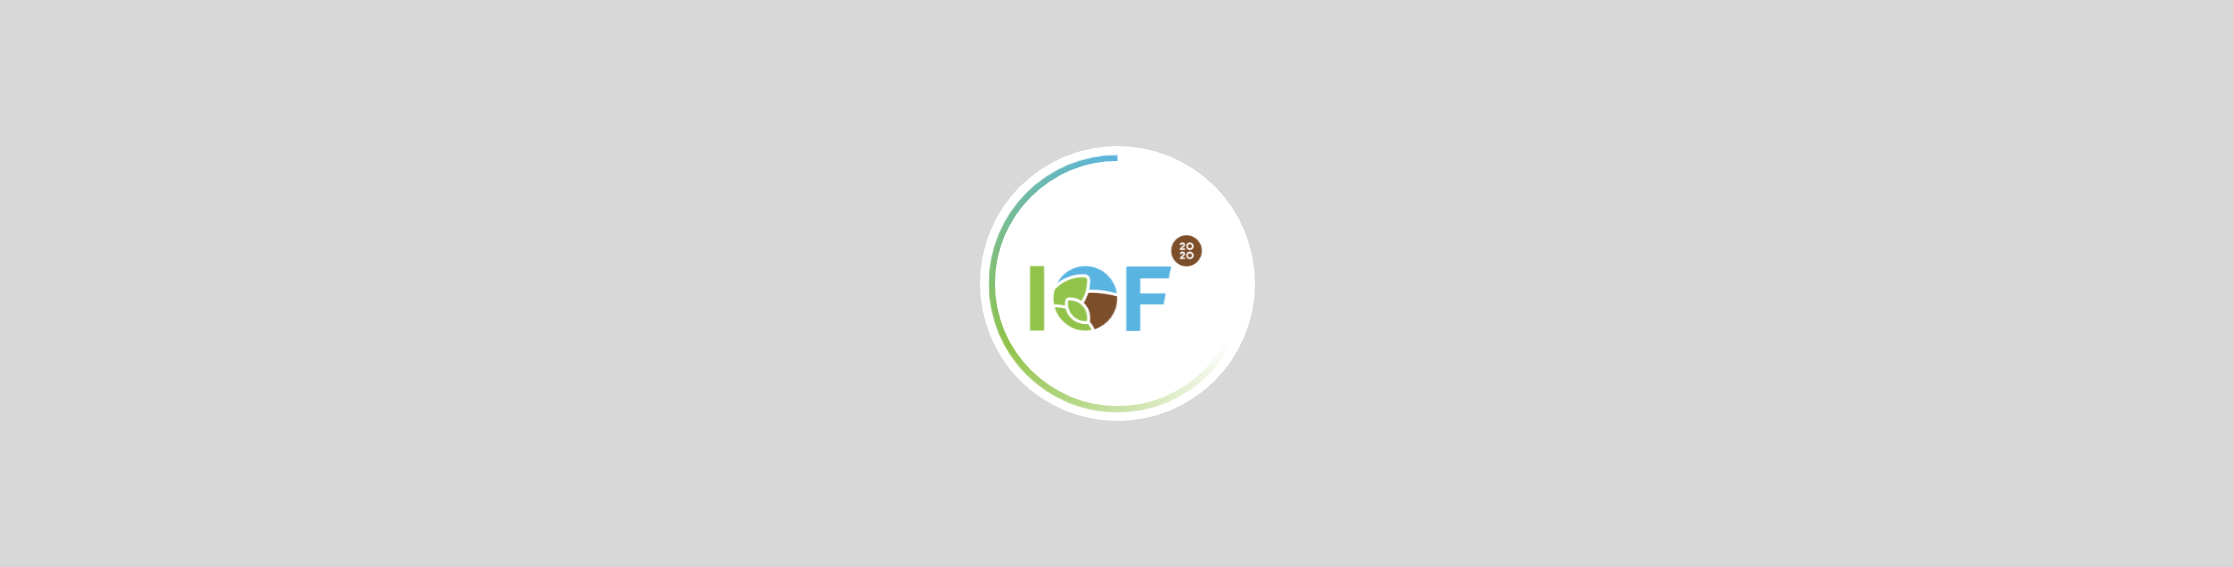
<svg xmlns="http://www.w3.org/2000/svg" width="2233" height="567">
<rect width="100%" height="100%" fill="#d8d8d8"/>
<circle fill="#fff" cx="1117.5" cy="283.5" r="137.5"/>
<image href="1.png" x="988" y="154" width="239" height="259"/>
<circle fill="#fff" cx="1117.5" cy="283.5" r="122.5"/>
<image href="2.png" x="1029" y="235" width="174" height="97"/>
</svg>
